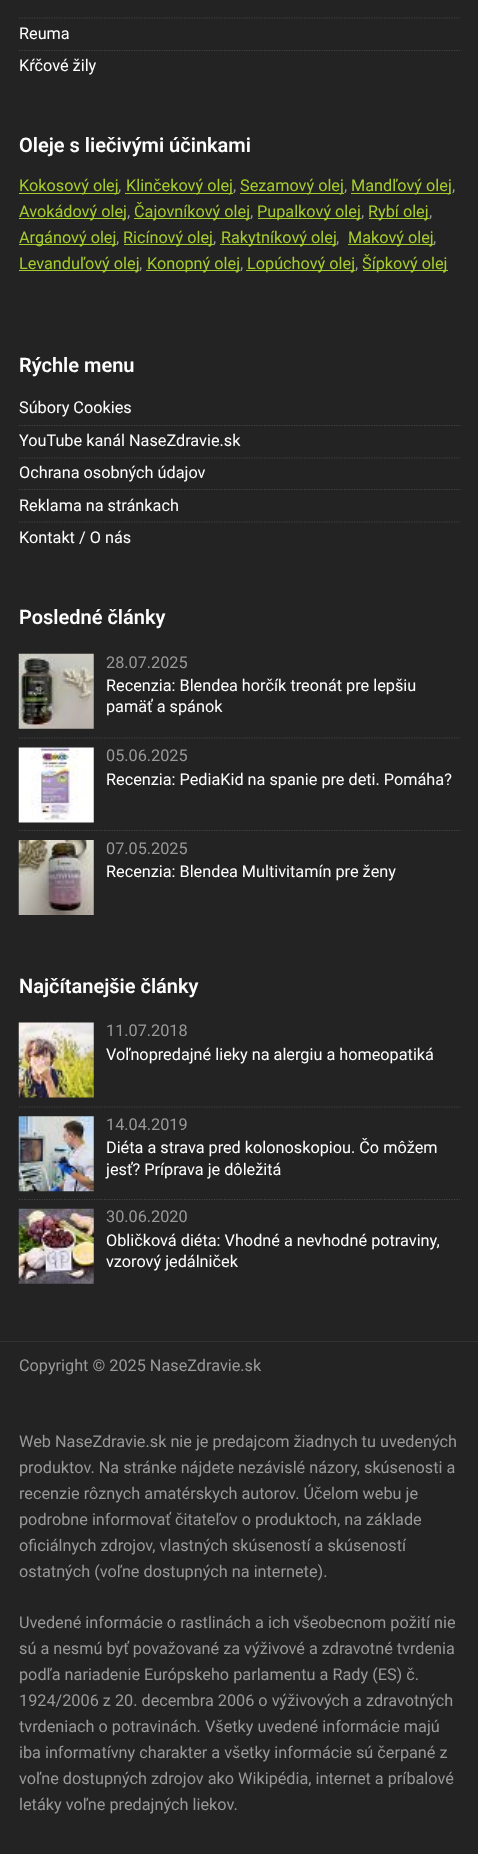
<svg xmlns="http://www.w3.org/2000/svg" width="478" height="1854">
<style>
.a{font:16.25px Roboto;fill:#fff}
.b{font:600 20px Roboto;fill:#fff}
.c{font:16.25px Roboto;fill:#a5cd2e}
.d{font:16.25px Roboto;fill:#999}
</style>
<rect width="100%" height="100%" fill="#232323"/>
<path fill="none" stroke="#444" stroke-width="1.2" stroke-dasharray="1.25 1.25" d="M19 18h441"/>
<path fill="none" stroke="#444" stroke-width="1.2" stroke-dasharray="1.25 1.25" d="M19 50.5h441"/>
<path fill="#a5cd2e" d="M19 193h100v1H19z"/>
<path fill="#a5cd2e" d="M125 193h108v1H125z"/>
<path fill="#a5cd2e" d="M240 193h104v1H240z"/>
<path fill="#a5cd2e" d="M351 193h100v1H351z"/>
<path fill="#a5cd2e" d="M19 218h107v1H19z"/>
<path fill="#a5cd2e" d="M134 218h116v1H134z"/>
<path fill="#a5cd2e" d="M258 218h103v1H258z"/>
<path fill="#a5cd2e" d="M369 218h60v1H369z"/>
<path fill="#a5cd2e" d="M19 244h97v1H19z"/>
<path fill="#a5cd2e" d="M124 244h90v1H124z"/>
<path fill="#a5cd2e" d="M220 244h116v1H220z"/>
<path fill="#a5cd2e" d="M348 244h86v1H348z"/>
<path fill="#a5cd2e" d="M19 270h120v1H19z"/>
<path fill="#a5cd2e" d="M146 270h94v1H146z"/>
<path fill="#a5cd2e" d="M246 270h109v1H246z"/>
<path fill="#a5cd2e" d="M363 270h85v1H363z"/>
<path fill="none" stroke="#444" stroke-width="1.2" stroke-dasharray="1.25 1.25" d="M19 425.5h441"/>
<path fill="none" stroke="#444" stroke-width="1.2" stroke-dasharray="1.25 1.25" d="M19 458h441"/>
<path fill="none" stroke="#444" stroke-width="1.2" stroke-dasharray="1.25 1.25" d="M19 489.5h441"/>
<path fill="none" stroke="#444" stroke-width="1.2" stroke-dasharray="1.25 1.25" d="M19 522h441"/>
<image href="1.png" x="18" y="653" width="76" height="76"/>
<path fill="none" stroke="#444" stroke-width="1.2" stroke-dasharray="1.25 1.25" d="M19 738h441"/>
<image href="2.png" x="18" y="747" width="76" height="76"/>
<path fill="none" stroke="#444" stroke-width="1.2" stroke-dasharray="1.25 1.25" d="M19 830.5h441"/>
<image href="3.png" x="18" y="840" width="76" height="75"/>
<image href="4.png" x="18" y="1022" width="76" height="76"/>
<path fill="none" stroke="#444" stroke-width="1.2" stroke-dasharray="1.25 1.25" d="M19 1107h441"/>
<image href="5.png" x="18" y="1116" width="76" height="76"/>
<path fill="none" stroke="#444" stroke-width="1.2" stroke-dasharray="1.25 1.25" d="M19 1199.5h441"/>
<image href="6.png" x="18" y="1208" width="76" height="76"/>
<path fill="#333" d="M0 1341h478v1H0z"/>
<text class="a" x="19" y="39">Reuma</text>
<text class="a" x="19" y="71">Kŕčové žily</text>
<text class="b" x="19" y="152">Oleje s liečivými účinkami</text>
<text class="c" x="19" y="191">Kokosový olej</text>
<text class="d" x="118" y="191">,</text>
<text class="c" x="126" y="191">Klinčekový olej</text>
<text class="d" x="233" y="191">,</text>
<text class="c" x="240" y="191">Sezamový olej</text>
<text class="d" x="344" y="191">,</text>
<text class="c" x="351" y="191">Mandľový olej</text>
<text class="d" x="452" y="191">,</text>
<text class="c" x="19" y="217">Avokádový olej</text>
<text class="d" x="127" y="217">,</text>
<text class="c" x="134" y="217">Čajovníkový olej</text>
<text class="d" x="250" y="217">,</text>
<text class="c" x="257" y="217">Pupalkový olej</text>
<text class="d" x="361" y="217">,</text>
<text class="c" x="368" y="217">Rybí olej</text>
<text class="d" x="429" y="217">,</text>
<text class="c" x="19" y="243">Argánový olej</text>
<text class="d" x="116" y="243">,</text>
<text class="c" x="123" y="243">Ricínový olej</text>
<text class="d" x="213" y="243">,</text>
<text class="c" x="221" y="243">Rakytníkový olej</text>
<text class="d" x="336" y="243">,</text>
<text class="c" x="348" y="243">Makový olej</text>
<text class="d" x="433" y="243">,</text>
<text class="c" x="19" y="269">Levanduľový olej</text>
<text class="d" x="139" y="269">,</text>
<text class="c" x="147" y="269">Konopný olej</text>
<text class="d" x="240" y="269">,</text>
<text class="c" x="247" y="269">Lopúchový olej</text>
<text class="d" x="355" y="269">,</text>
<text class="c" x="362" y="269">Šípkový olej</text>
<text class="b" x="19" y="372">Rýchle menu</text>
<text class="a" x="19" y="413">Súbory Cookies</text>
<text class="a" x="19" y="446">YouTube kanál NaseZdravie.sk</text>
<text class="a" x="19" y="478">Ochrana osobných údajov</text>
<text class="a" x="19" y="511">Reklama na stránkach</text>
<text class="a" x="19" y="543">Kontakt / O nás</text>
<text class="b" x="19" y="624">Posledné články</text>
<text class="d" x="106" y="668">28.07.2025</text>
<text class="a" x="106" y="691">Recenzia: Blendea horčík treonát pre lepšiu</text>
<text class="a" x="106" y="712">pamäť a spánok</text>
<text class="d" x="106" y="761">05.06.2025</text>
<text class="a" x="106" y="785">Recenzia: PediaKid na spanie pre deti. Pomáha?</text>
<text class="d" x="106" y="854">07.05.2025</text>
<text class="a" x="106" y="877">Recenzia: Blendea Multivitamín pre ženy</text>
<text class="b" x="19" y="993">Najčítanejšie články</text>
<text class="d" x="106" y="1036">11.07.2018</text>
<text class="a" x="106" y="1060">Voľnopredajné lieky na alergiu a homeopatiká</text>
<text class="d" x="106" y="1130">14.04.2019</text>
<text class="a" x="106" y="1153">Diéta a strava pred kolonoskopiou. Čo môžem</text>
<text class="a" x="106" y="1175">jesť? Príprava je dôležitá</text>
<text class="d" x="106" y="1222">30.06.2020</text>
<text class="a" x="106" y="1246">Obličková diéta: Vhodné a nevhodné potraviny,</text>
<text class="a" x="106" y="1267">vzorový jedálniček</text>
<text class="d" x="19" y="1371">Copyright © 2025 NaseZdravie.sk</text>
<text class="d" x="19" y="1447">Web NaseZdravie.sk nie je predajcom žiadnych tu uvedených</text>
<text class="d" x="19" y="1473">produktov. Na stránke nájdete nezávislé názory, skúsenosti a</text>
<text class="d" x="19" y="1499">recenzie rôznych amatérskych autorov. Účelom webu je</text>
<text class="d" x="19" y="1525">podrobne informovať čitateľov o produktoch, na základe</text>
<text class="d" x="19" y="1551">oficiálnych zdrojov, vlastných skúseností a skúseností</text>
<text class="d" x="19" y="1577">ostatných (voľne dostupných na internete).</text>
<text class="d" x="19" y="1628">Uvedené informácie o rastlinách a ich všeobecnom požití nie</text>
<text class="d" x="19" y="1654">sú a nesmú byť považované za výživové a zdravotné tvrdenia</text>
<text class="d" x="19" y="1680">podľa nariadenie Európskeho parlamentu a Rady (ES) č.</text>
<text class="d" x="19" y="1706">1924/2006 z 20. decembra 2006 o výživových a zdravotných</text>
<text class="d" x="19" y="1732">tvrdeniach o potravinách. Všetky uvedené informácie majú</text>
<text class="d" x="19" y="1758">iba informatívny charakter a všetky informácie sú čerpané z</text>
<text class="d" x="19" y="1784">voľne dostupných zdrojov ako Wikipédia, internet a príbalové</text>
<text class="d" x="19" y="1810">letáky voľne predajných liekov.</text>
</svg>
